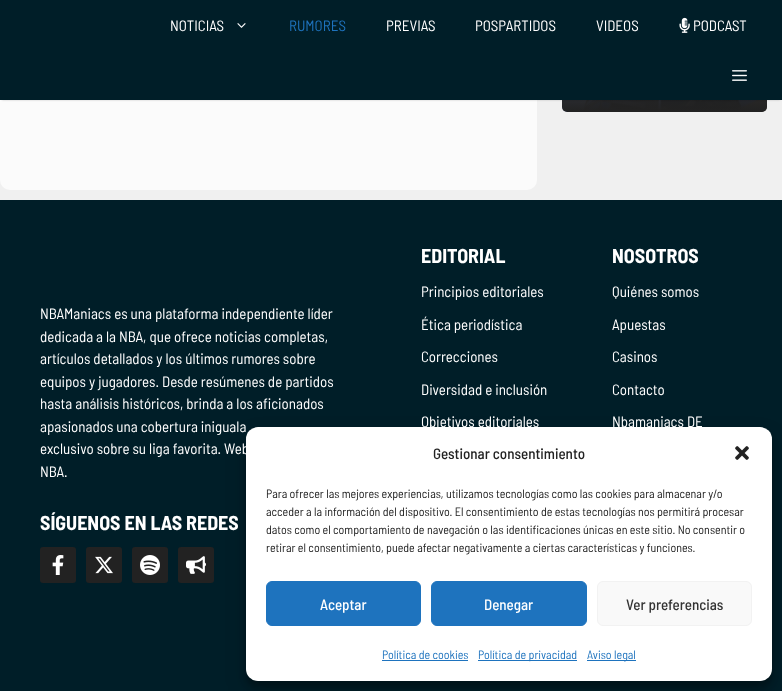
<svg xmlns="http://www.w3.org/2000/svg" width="782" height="691">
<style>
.a{font:15px Barlow Semi Condensed;fill:#fff}
.b{font:15px Barlow Semi Condensed;fill:#1e73be}
.c{font:bold 20px Barlow Semi Condensed;fill:#fff}
.d{font:500 15px Barlow Semi Condensed;fill:#222}
.e{font:12px Barlow Semi Condensed;fill:#222}
.f{font:500 15px Barlow Semi Condensed;fill:#fff}
.g{font:500 15px Barlow Semi Condensed;fill:#333}
.h{font:12px Barlow Semi Condensed;fill:#1e73be}
</style>
<defs>
<linearGradient id="g1" gradientUnits="userSpaceOnUse" x1="665" y1="-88" x2="665" y2="112"><stop offset="0" stop-color="#222" stop-opacity="0"/><stop offset="1" stop-color="#222"/></linearGradient>
</defs>
<rect width="100%" height="100%" fill="#f0f0f0"/>
<rect fill="#fbfbfb" y="-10" width="537" height="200" rx="10"/>
<image href="1.png" x="562" y="100" width="205" height="12"/>
<rect fill="url(#g1)" x="562" y="-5" width="205" height="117" rx="5"/>
<path fill="#00000033" filter="blur(1px)" d="M2 4h778v96H2z"/>
<path fill="#001e28" d="M0 0h782v100H0z"/>
<image href="2.png" x="237" y="23" width="9" height="5"/>
<image href="3.png" x="679" y="17" width="11" height="16"/>
<image href="4.png" x="732" y="70" width="15" height="11"/>
<path fill="#001e28" d="M0 200h782v491H0z"/>
<rect fill="#222" x="40" y="547" width="36" height="36" rx="3"/>
<image href="5.png" x="52" y="555" width="12" height="20"/>
<rect fill="#222" x="86" y="547" width="36" height="36" rx="3"/>
<image href="6.png" x="95" y="556" width="18" height="18"/>
<rect fill="#222" x="132" y="547" width="36" height="36" rx="3"/>
<image href="7.png" x="140" y="555" width="20" height="20"/>
<rect fill="#222" x="178" y="547" width="36" height="36" rx="3"/>
<image href="8.png" x="186" y="556" width="20" height="18"/>
<rect fill="#0000003b" filter="blur(3px)" x="246" y="433" width="526" height="254" rx="12"/>
<rect fill="#00000030" filter="blur(10px)" x="246" y="437" width="526" height="254" rx="12"/>
<rect fill="#fff" x="246" y="427" width="526" height="254" rx="12"/>
<image href="9.png" x="735" y="446" width="14" height="14"/>
<rect fill="#1e73be" stroke="#1e73be" x="266.5" y="581.5" width="154" height="44" rx="5.5"/>
<rect fill="#1e73be" stroke="#1e73be" x="431.5" y="581.5" width="155" height="44" rx="5.5"/>
<rect fill="#f9f9f9" stroke="#f2f2f2" x="597.5" y="581.5" width="154" height="44" rx="5.5"/>
<path fill="#1e73be" d="M382 660h86v1H382z"/>
<path fill="#1e73be" d="M478 660h99v1H478z"/>
<path fill="#1e73be" d="M587 660h49v1H587z"/>
<text class="a" x="170" y="31">NOTICIAS</text>
<text class="b" x="289" y="31">RUMORES</text>
<text class="a" x="386" y="31">PREVIAS</text>
<text class="a" x="475" y="31">POSPARTIDOS</text>
<text class="a" x="596" y="31">VIDEOS</text>
<text class="a" x="693" y="31">PODCAST</text>
<text class="a" x="40" y="319">NBAManiacs es una plataforma independiente líder</text>
<text class="a" x="40" y="342">dedicada a la NBA, que ofrece noticias completas,</text>
<text class="a" x="40" y="364">artículos detallados y los últimos rumores sobre</text>
<text class="a" x="40" y="387">equipos y jugadores. Desde resúmenes de partidos</text>
<text class="a" x="40" y="409">hasta análisis históricos, brinda a los aficionados</text>
<text class="a" x="40" y="432">apasionados una cobertura iniguala</text>
<text class="a" x="40" y="454">exclusivo sobre su liga favorita. Web</text>
<text class="a" x="40" y="477">NBA.</text>
<text class="c" x="40" y="530">SÍGUENOS EN LAS REDES</text>
<text class="c" x="421" y="263">EDITORIAL</text>
<text class="a" x="421" y="297">Principios editoriales</text>
<text class="a" x="421" y="330">Ética periodística</text>
<text class="a" x="421" y="362">Correcciones</text>
<text class="a" x="421" y="395">Diversidad e inclusión</text>
<text class="a" x="421" y="427">Objetivos editoriales</text>
<text class="c" x="612" y="263">NOSOTROS</text>
<text class="a" x="612" y="297">Quiénes somos</text>
<text class="a" x="612" y="330">Apuestas</text>
<text class="a" x="612" y="362">Casinos</text>
<text class="a" x="612" y="395">Contacto</text>
<text class="a" x="612" y="427">Nbamaniacs DE</text>
<text class="d" x="433" y="459">Gestionar consentimiento</text>
<text class="e" x="266" y="498">Para ofrecer las mejores experiencias, utilizamos tecnologías como las cookies para almacenar y/o</text>
<text class="e" x="266" y="516">acceder a la información del dispositivo. El consentimiento de estas tecnologías nos permitirá procesar</text>
<text class="e" x="266" y="534">datos como el comportamiento de navegación o las identificaciones únicas en este sitio. No consentir o</text>
<text class="e" x="266" y="552">retirar el consentimiento, puede afectar negativamente a ciertas características y funciones.</text>
<text class="f" x="320" y="610">Aceptar</text>
<text class="f" x="484" y="610">Denegar</text>
<text class="g" x="626" y="610">Ver preferencias</text>
<text class="h" x="382" y="659">Política de cookies</text>
<text class="h" x="478" y="659">Política de privacidad</text>
<text class="h" x="587" y="659">Aviso legal</text>
</svg>
